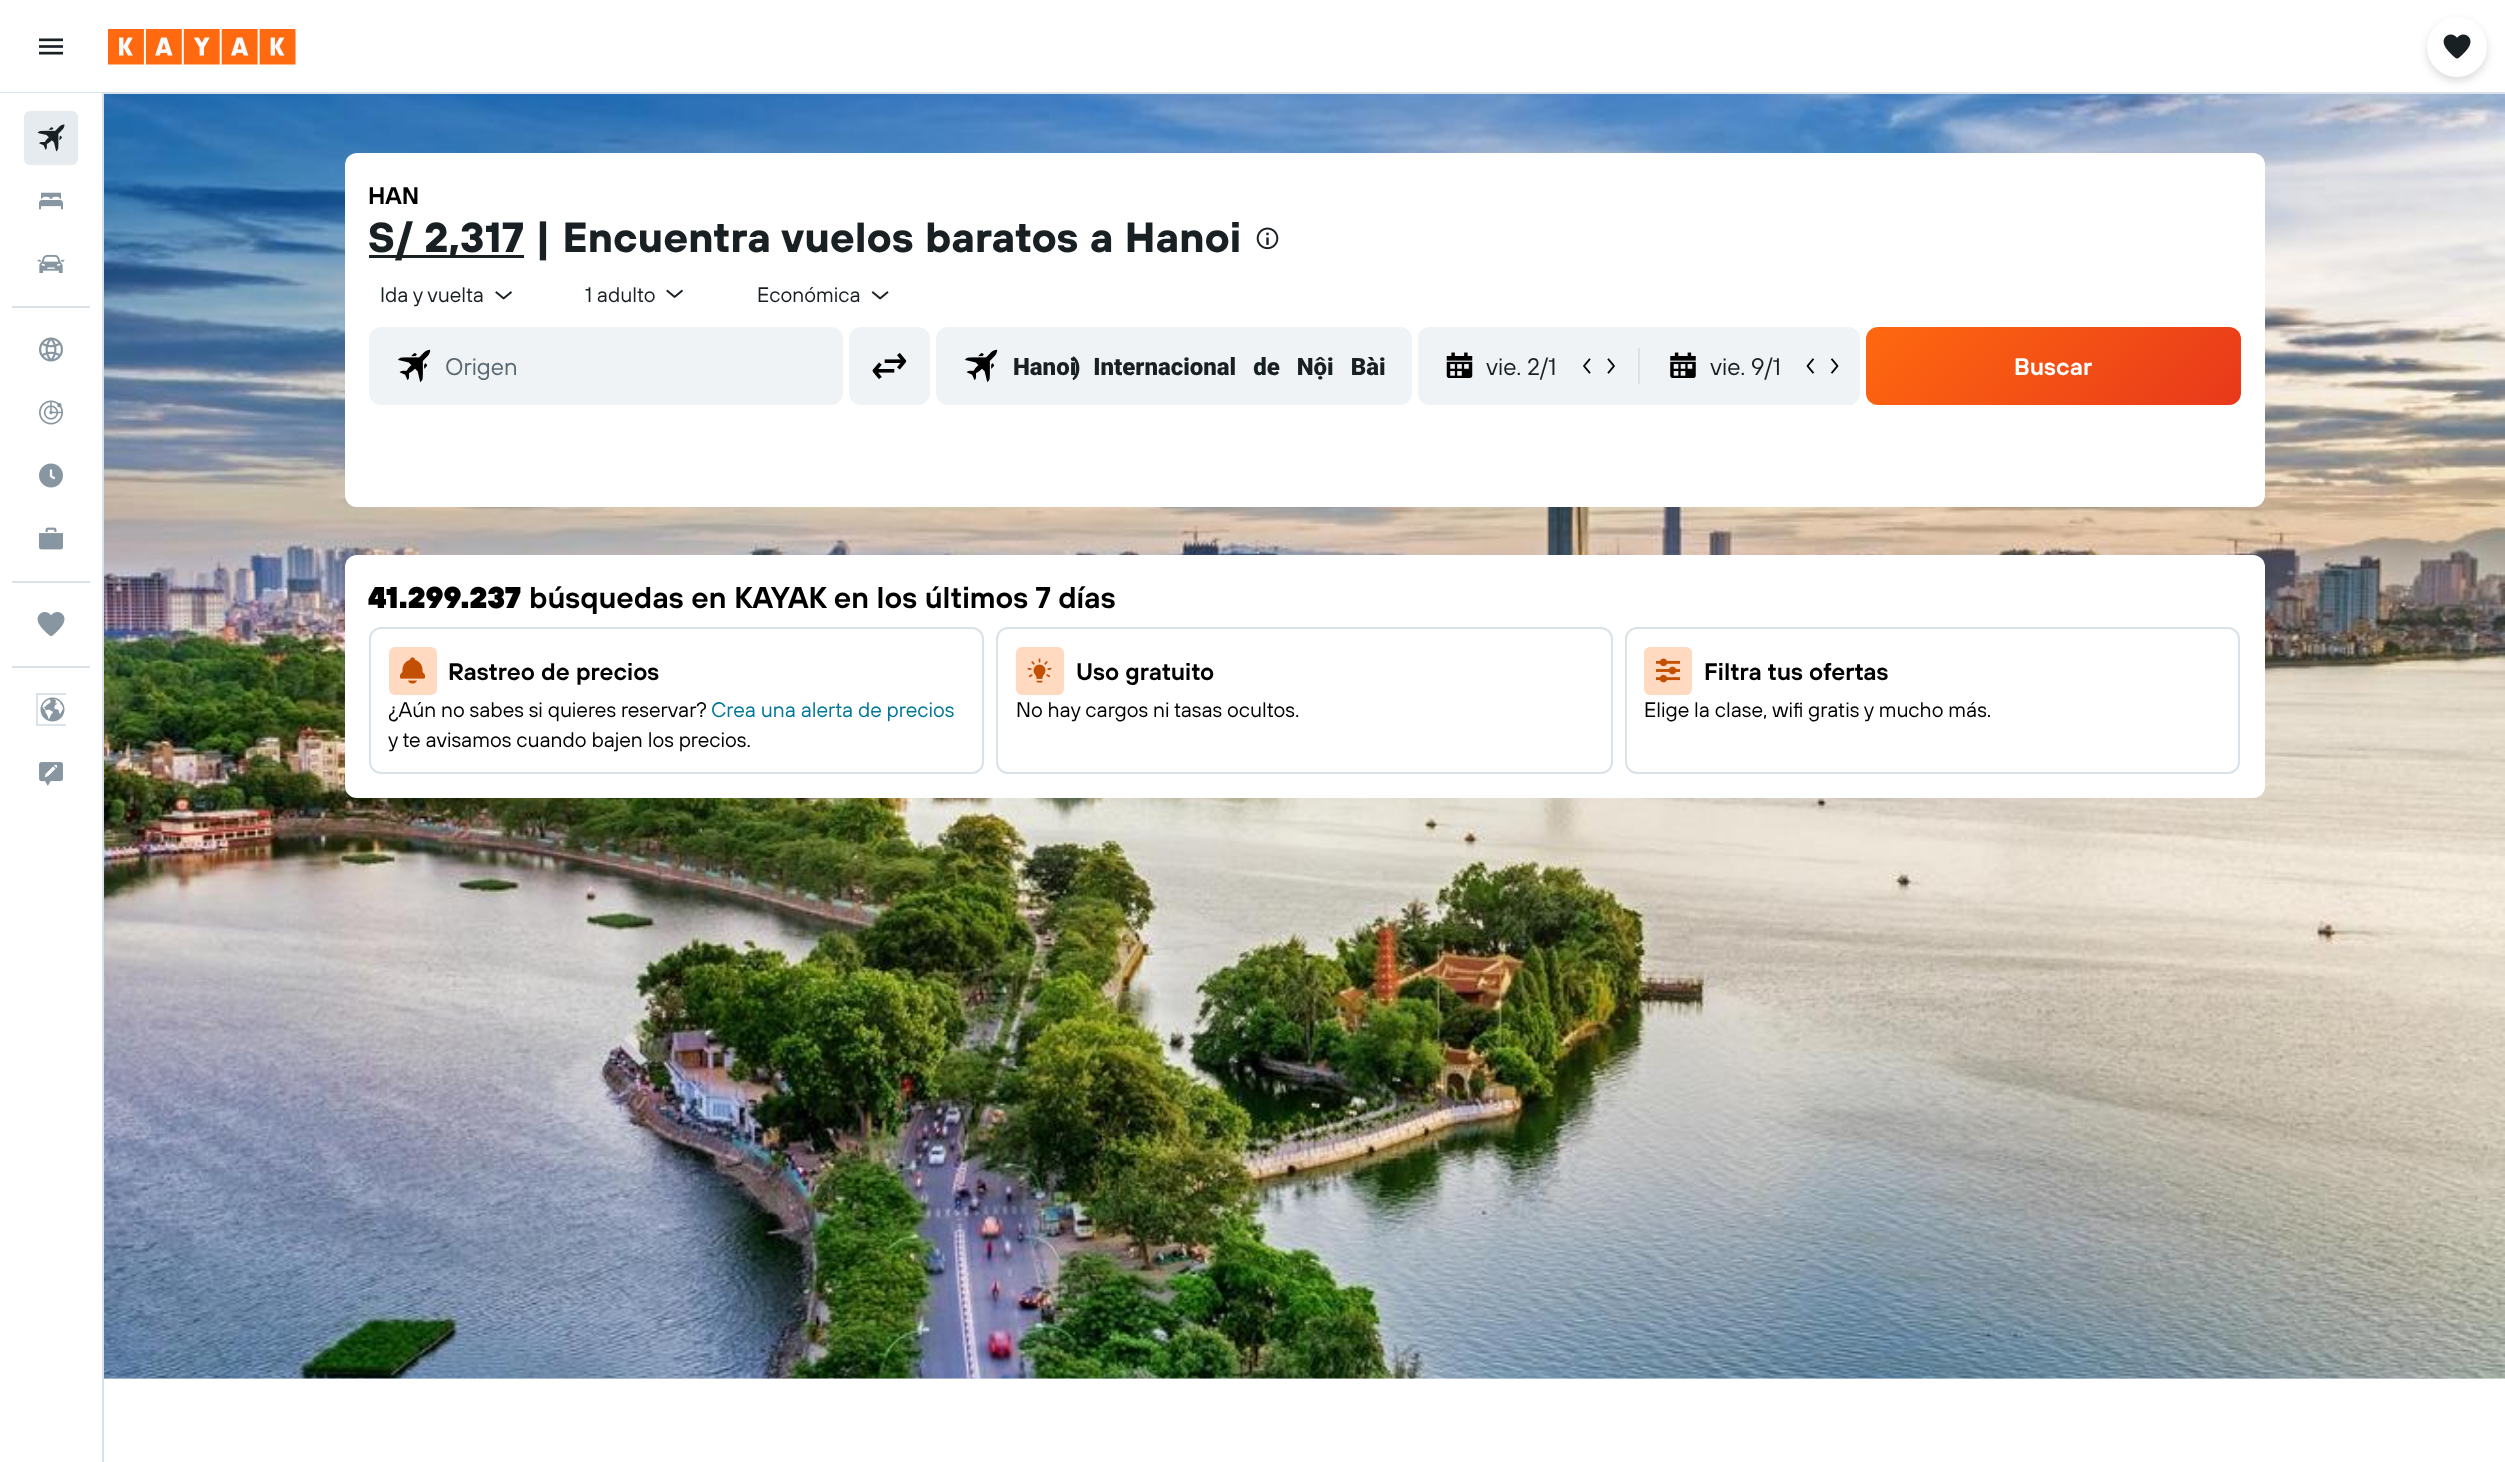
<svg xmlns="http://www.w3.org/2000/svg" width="2505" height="1462">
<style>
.a{font:600 24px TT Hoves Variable;fill:#000}
.b{font:bold 42px TT Hoves Variable;fill:#192024}
.c{font:21px TT Hoves Variable;fill:#192024}
.d{font:24px TT Hoves Variable;fill:#5a6872}
.e{font:900 24px Roboto;fill:#192024}
.f{font:24px TT Hoves Variable;fill:#192024}
.g{font:600 24px TT Hoves Variable;fill:#fff}
.h{font:900 30px TT Hoves Variable;fill:#000}
.i{font:600 30px TT Hoves Variable;fill:#000}
.j{font:21px TT Hoves Variable;fill:#000}
.k{font:21px TT Hoves Variable;fill:#079}
</style>
<defs>
<clipPath id="clip1"><path d="M36 693h30v33H36z"/></clipPath>
<linearGradient id="g1" gradientUnits="userSpaceOnUse" x1="1940" y1="253" x2="2167" y2="479"><stop offset="0" stop-color="#ff690f"/><stop offset="1" stop-color="#e8381b"/></linearGradient>
</defs>
<rect width="100%" height="100%" fill="#fff"/>
<path fill="#d9e2e8" d="M0 92h2505v2H0z"/>
<image href="1.png" x="39" y="38" width="24" height="17"/>
<image href="2.png" x="108" y="29" width="188" height="36"/>
<path fill="#e5ebf0" d="M104 1378h2401v1H104z"/>
<image href="14.png" x="104" y="94" width="2401" height="1285"/>
<rect fill="#19202429" filter="blur(4.5px)" x="2427" y="21" width="60" height="60" rx="30"/>
<circle fill="#fff" cx="2457" cy="47" r="30"/>
<image href="3.png" x="2443" y="34" width="28" height="25"/>
<path fill="#fff" d="M0 93h102v1H0z"/>
<path fill="#d9e2e8" d="M102 93h2v1369H102z"/>
<rect fill="#e6ebef" x="24" y="111" width="54" height="54" rx="6"/>
<image href="4.png" x="37" y="124" width="28" height="28"/>
<image href="5.png" x="39" y="192" width="24" height="18"/>
<image href="6.png" x="37" y="254" width="28" height="19"/>
<path fill="#d9e2e8" d="M12 306h78v2H12z"/>
<image href="7.png" x="39" y="337" width="24" height="25"/>
<image href="8.png" x="39" y="400" width="24" height="25"/>
<image href="9.png" x="39" y="463" width="24" height="25"/>
<image href="10.png" x="39" y="527" width="24" height="23"/>
<path fill="#d9e2e8" d="M12 581h78v2H12z"/>
<image href="11.png" x="37" y="612" width="28" height="24"/>
<path fill="#d9e2e8" d="M12 666h78v2H12z"/>
<g clip-path="url(#clip1)">
<path fill="none" stroke="#d9e2e8" stroke-width="2" d="M37 694h31v31H37z"/>
</g>
<image href="12.png" x="40" y="697" width="25" height="25"/>
<image href="13.png" x="39" y="762" width="24" height="24"/>
<rect fill="#fff" x="345" y="153" width="1920" height="354" rx="12"/>
<path fill="#192024" d="M369 255h155v3H369z"/>
<image href="15.png" x="1256" y="227" width="23" height="23"/>
<image href="16.png" x="495" y="291" width="17" height="9"/>
<image href="17.png" x="666" y="289" width="17" height="9"/>
<image href="18.png" x="871" y="291" width="18" height="9"/>
<rect fill="#f0f3f5" stroke="#f0f3f5" stroke-width="2" x="370" y="328" width="472" height="76" rx="11"/>
<image href="19.png" x="397" y="349" width="34" height="34"/>
<rect fill="#f0f3f5" x="849" y="327" width="81" height="78" rx="12"/>
<image href="20.png" x="872" y="352" width="35" height="27"/>
<rect fill="#f0f3f5" stroke="#f0f3f5" stroke-width="2" x="937" y="328" width="474" height="76" rx="11"/>
<image href="19.png" x="964" y="349" width="34" height="34"/>
<rect fill="#f0f3f5" x="1418" y="327" width="442" height="78" rx="12"/>
<rect fill="#f0f3f5" x="1418" y="327" width="219" height="78" rx="12"/>
<image href="21.png" x="1446" y="352" width="27" height="26"/>
<image href="22.png" x="1583" y="358" width="8" height="16"/>
<image href="23.png" x="1607" y="358" width="8" height="16"/>
<path fill="#d9e2e8" d="M1638 348h2v36H1638z"/>
<rect fill="#f0f3f5" x="1641" y="327" width="219" height="78" rx="12"/>
<image href="24.png" x="1670" y="352" width="26" height="26"/>
<image href="25.png" x="1806" y="358" width="9" height="16"/>
<image href="26.png" x="1830" y="358" width="9" height="16"/>
<rect fill="url(#g1)" x="1866" y="327" width="375" height="78" rx="12"/>
<rect fill="#fff" x="345" y="555" width="1920" height="243" rx="12"/>
<rect fill="none" stroke="#d9e2e8" stroke-width="2" x="370" y="628" width="613" height="145" rx="11"/>
<rect fill="#ffdac1" x="389" y="647" width="48" height="48" rx="6"/>
<image href="27.png" x="400" y="657" width="25" height="27"/>
<rect fill="none" stroke="#d9e2e8" stroke-width="2" x="997" y="628" width="615" height="145" rx="11"/>
<rect fill="#ffdac1" x="1016" y="647" width="48" height="48" rx="6"/>
<image href="28.png" x="1027" y="658" width="25" height="25"/>
<rect fill="none" stroke="#d9e2e8" stroke-width="2" x="1626" y="628" width="613" height="145" rx="11"/>
<rect fill="#ffdac1" x="1644" y="647" width="48" height="48" rx="6"/>
<image href="29.png" x="1656" y="658" width="24" height="25"/>
<text class="a" x="368" y="204">HAN</text>
<text class="b" x="368" y="252">S/ 2,317 | Encuentra vuelos baratos a Hanoi</text>
<text class="c" x="380" y="302">Ida y vuelta</text>
<text class="c" x="585" y="302">1 adulto</text>
<text class="c" x="757" y="302">Económica</text>
<text class="d" x="445" y="375">Origen</text>
<text class="e" x="1013" y="375" word-spacing="11">Hanoi Internacional de Nội Bài</text>
<text class="e" x="1072" y="375">)</text>
<text class="f" x="1486" y="375">vie. 2/1</text>
<text class="f" x="1710" y="375">vie. 9/1</text>
<text class="g" x="2014" y="375">Buscar</text>
<text class="h" x="368" y="608">41.299.237</text>
<text class="i" x="529" y="608">búsquedas en KAYAK en los últimos 7 días</text>
<text class="a" x="448" y="680">Rastreo de precios</text>
<text class="j" x="388" y="717">¿Aún no sabes si quieres reservar?</text>
<text class="k" x="711" y="717">Crea una alerta de precios</text>
<text class="j" x="388" y="747">y te avisamos cuando bajen los precios.</text>
<text class="a" x="1076" y="680">Uso gratuito</text>
<text class="j" x="1016" y="717">No hay cargos ni tasas ocultos.</text>
<text class="a" x="1704" y="680">Filtra tus ofertas</text>
<text class="j" x="1644" y="717">Elige la clase, wifi gratis y mucho más.</text>
</svg>
